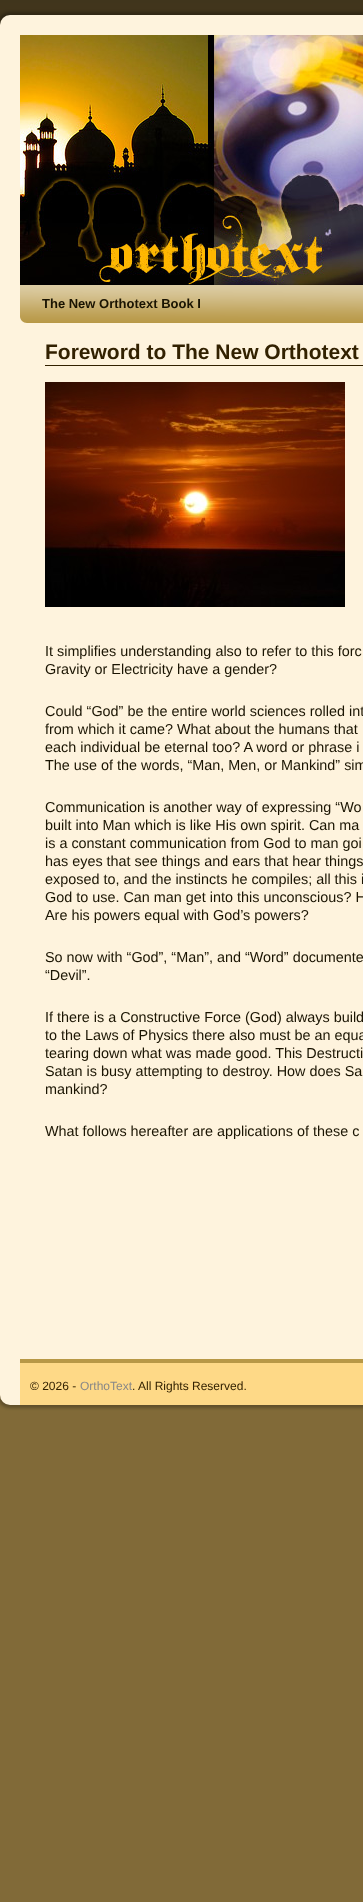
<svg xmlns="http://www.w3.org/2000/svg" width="363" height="1902">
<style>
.a{font:bold 13px Liberation Sans;fill:#1a1402}
.b{font:bold 21px Liberation Sans;fill:#322100}
.c{font:14.4px Liberation Sans;fill:#1a1402}
.d{font:12px Liberation Sans;fill:#322100}
.e{font:12px Liberation Sans;fill:#888}
</style>
<rect width="100%" height="100%" fill="#816a38"/>
<image href="1.png" x="0" y="0" width="363" height="25"/>
<rect fill="#00000040" filter="blur(1.5px)" x="-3" y="12" width="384" height="1396" rx="13"/>
<rect fill="#fef3dd" y="15" width="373" height="1390" rx="10"/>
<image href="2.png" x="20" y="35" width="343" height="250"/>
<path fill="#b89846" d="M20 285h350v31c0 4-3 7-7 7h-336c-4 0-7-3-7-7z"/>
<image href="3.png" x="20" y="285" width="343" height="37"/>
<path fill="#322100" d="M45 365h318v1H45z"/>
<image href="4.png" x="45" y="382" width="300" height="225"/>
<path fill="#fed987" d="M20 1363h343v42H20z"/>
<path fill="#b89846" d="M20 1359h343v4H20z"/>
<text class="a" x="42" y="308">The New Orthotext Book I</text>
<text class="b" x="45" y="359">Foreword to The New Orthotext</text>
<text class="c" x="45" y="656">It simplifies understanding also to refer to this forc</text>
<text class="c" x="45" y="674">Gravity or Electricity have a gender?</text>
<text class="c" x="45" y="716">Could “God” be the entire world sciences rolled int</text>
<text class="c" x="45" y="734">from which it came? What about the humans that</text>
<text class="c" x="45" y="752">each individual be eternal too? A word or phrase i</text>
<text class="c" x="45" y="770">The use of the words, “Man, Men, or Mankind” sim</text>
<text class="c" x="45" y="812">Communication is another way of expressing “Wo</text>
<text class="c" x="45" y="830">built into Man which is like His own spirit. Can ma</text>
<text class="c" x="45" y="848">is a constant communication from God to man goi</text>
<text class="c" x="45" y="866">has eyes that see things and ears that hear things</text>
<text class="c" x="45" y="884">exposed to, and the instincts he compiles; all this i</text>
<text class="c" x="45" y="902">God to use. Can man get into this unconscious? H</text>
<text class="c" x="45" y="920">Are his powers equal with God’s powers?</text>
<text class="c" x="45" y="962">So now with “God”, “Man”, and “Word” documente</text>
<text class="c" x="45" y="980">“Devil”.</text>
<text class="c" x="45" y="1022">If there is a Constructive Force (God) always build</text>
<text class="c" x="45" y="1040">to the Laws of Physics there also must be an equa</text>
<text class="c" x="45" y="1058">tearing down what was made good. This Destructi</text>
<text class="c" x="45" y="1076">Satan is busy attempting to destroy. How does Sa</text>
<text class="c" x="45" y="1094">mankind?</text>
<text class="c" x="45" y="1136">What follows hereafter are applications of these c</text>
<text class="d" x="30" y="1390">© 2026 -</text>
<text class="e" x="80" y="1390">OrthoText</text>
<text class="d" x="132" y="1390">. All Rights Reserved.</text>
</svg>
